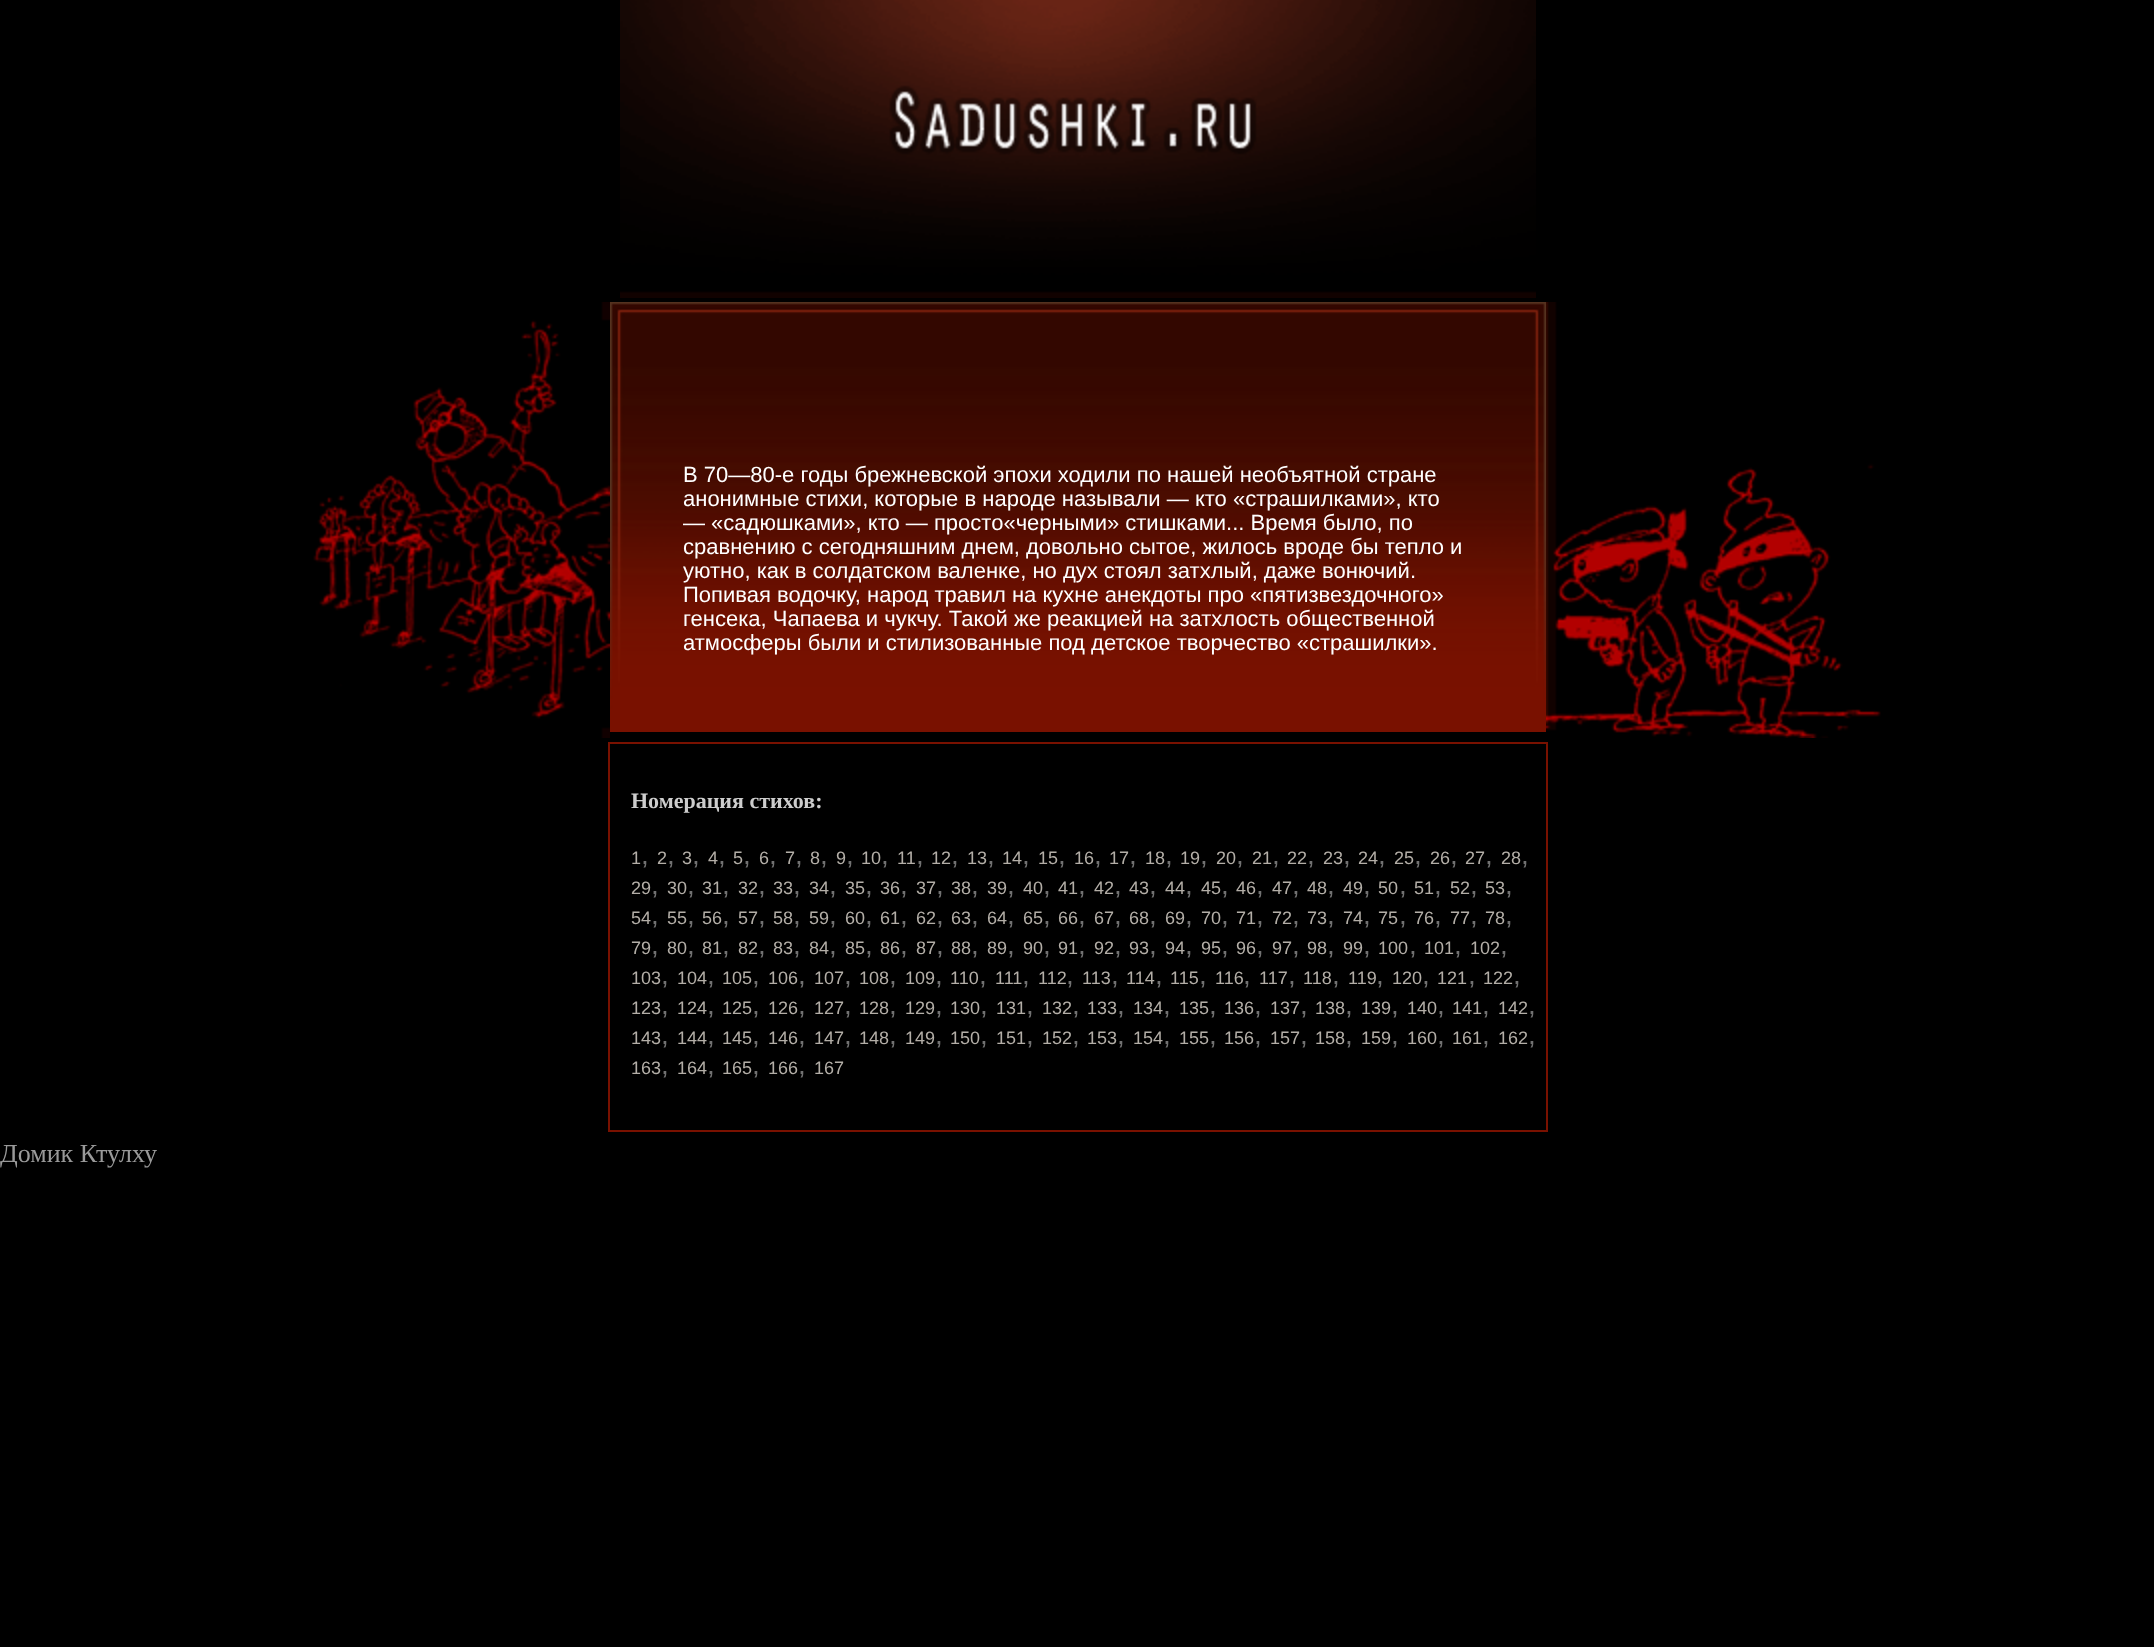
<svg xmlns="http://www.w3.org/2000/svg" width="2154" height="1647">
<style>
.a{font:22px Liberation Sans;fill:#fff}
.b{font:bold 22px Liberation Serif;fill:#cdcdcd}
.c{font:18px Liberation Sans;fill:#b3aea7}
.d{font:28px Liberation Sans;fill:#717171}
.e{font:26px Liberation Serif;fill:#999}
</style>
<rect width="100%" height="100%" fill="#000"/>
<image href="1.png" x="620" y="0" width="916" height="298"/>
<image href="2.png" x="313" y="302" width="297" height="436"/>
<image href="3.png" x="610" y="302" width="936" height="430"/>
<image href="4.png" x="1546" y="302" width="335" height="436"/>
<path fill="#791100" d="M608 742h940v390H608z"/>
<path fill="#000" d="M610 744h936v386H610z"/>
<text class="a" x="683" y="482">В 70—80-е годы брежневской эпохи ходили по нашей необъятной стране</text>
<text class="a" x="683" y="506">анонимные стихи, которые в народе называли — кто «страшилками», кто</text>
<text class="a" x="683" y="530">— «садюшками», кто — просто«черными» стишками... Время было, по</text>
<text class="a" x="683" y="554">сравнению с сегодняшним днем, довольно сытое, жилось вроде бы тепло и</text>
<text class="a" x="683" y="578">уютно, как в солдатском валенке, но дух стоял затхлый, даже вонючий.</text>
<text class="a" x="683" y="602">Попивая водочку, народ травил на кухне анекдоты про «пятизвездочного»</text>
<text class="a" x="683" y="626">генсека, Чапаева и чукчу. Такой же реакцией на затхлость общественной</text>
<text class="a" x="683" y="650">атмосферы были и стилизованные под детское творчество «страшилки».</text>
<text class="b" x="631" y="808">Номерация стихов:</text>
<text class="c" x="631" y="864">1</text>
<text class="d" x="641" y="864">,</text>
<text class="c" x="657" y="864">2</text>
<text class="d" x="667" y="864">,</text>
<text class="c" x="682" y="864">3</text>
<text class="d" x="692" y="864">,</text>
<text class="c" x="708" y="864">4</text>
<text class="d" x="718" y="864">,</text>
<text class="c" x="733" y="864">5</text>
<text class="d" x="743" y="864">,</text>
<text class="c" x="759" y="864">6</text>
<text class="d" x="769" y="864">,</text>
<text class="c" x="785" y="864">7</text>
<text class="d" x="795" y="864">,</text>
<text class="c" x="810" y="864">8</text>
<text class="d" x="820" y="864">,</text>
<text class="c" x="836" y="864">9</text>
<text class="d" x="846" y="864">,</text>
<text class="c" x="861" y="864">10</text>
<text class="d" x="881" y="864">,</text>
<text class="c" x="897" y="864">11</text>
<text class="d" x="916" y="864">,</text>
<text class="c" x="931" y="864">12</text>
<text class="d" x="951" y="864">,</text>
<text class="c" x="967" y="864">13</text>
<text class="d" x="987" y="864">,</text>
<text class="c" x="1002" y="864">14</text>
<text class="d" x="1022" y="864">,</text>
<text class="c" x="1038" y="864">15</text>
<text class="d" x="1058" y="864">,</text>
<text class="c" x="1074" y="864">16</text>
<text class="d" x="1094" y="864">,</text>
<text class="c" x="1109" y="864">17</text>
<text class="d" x="1129" y="864">,</text>
<text class="c" x="1145" y="864">18</text>
<text class="d" x="1165" y="864">,</text>
<text class="c" x="1180" y="864">19</text>
<text class="d" x="1200" y="864">,</text>
<text class="c" x="1216" y="864">20</text>
<text class="d" x="1236" y="864">,</text>
<text class="c" x="1252" y="864">21</text>
<text class="d" x="1272" y="864">,</text>
<text class="c" x="1287" y="864">22</text>
<text class="d" x="1307" y="864">,</text>
<text class="c" x="1323" y="864">23</text>
<text class="d" x="1343" y="864">,</text>
<text class="c" x="1358" y="864">24</text>
<text class="d" x="1378" y="864">,</text>
<text class="c" x="1394" y="864">25</text>
<text class="d" x="1414" y="864">,</text>
<text class="c" x="1430" y="864">26</text>
<text class="d" x="1450" y="864">,</text>
<text class="c" x="1465" y="864">27</text>
<text class="d" x="1485" y="864">,</text>
<text class="c" x="1501" y="864">28</text>
<text class="d" x="1521" y="864">,</text>
<text class="c" x="631" y="894">29</text>
<text class="d" x="651" y="894">,</text>
<text class="c" x="667" y="894">30</text>
<text class="d" x="687" y="894">,</text>
<text class="c" x="702" y="894">31</text>
<text class="d" x="722" y="894">,</text>
<text class="c" x="738" y="894">32</text>
<text class="d" x="758" y="894">,</text>
<text class="c" x="773" y="894">33</text>
<text class="d" x="793" y="894">,</text>
<text class="c" x="809" y="894">34</text>
<text class="d" x="829" y="894">,</text>
<text class="c" x="845" y="894">35</text>
<text class="d" x="865" y="894">,</text>
<text class="c" x="880" y="894">36</text>
<text class="d" x="900" y="894">,</text>
<text class="c" x="916" y="894">37</text>
<text class="d" x="936" y="894">,</text>
<text class="c" x="951" y="894">38</text>
<text class="d" x="971" y="894">,</text>
<text class="c" x="987" y="894">39</text>
<text class="d" x="1007" y="894">,</text>
<text class="c" x="1023" y="894">40</text>
<text class="d" x="1043" y="894">,</text>
<text class="c" x="1058" y="894">41</text>
<text class="d" x="1078" y="894">,</text>
<text class="c" x="1094" y="894">42</text>
<text class="d" x="1114" y="894">,</text>
<text class="c" x="1129" y="894">43</text>
<text class="d" x="1149" y="894">,</text>
<text class="c" x="1165" y="894">44</text>
<text class="d" x="1185" y="894">,</text>
<text class="c" x="1201" y="894">45</text>
<text class="d" x="1221" y="894">,</text>
<text class="c" x="1236" y="894">46</text>
<text class="d" x="1256" y="894">,</text>
<text class="c" x="1272" y="894">47</text>
<text class="d" x="1292" y="894">,</text>
<text class="c" x="1307" y="894">48</text>
<text class="d" x="1327" y="894">,</text>
<text class="c" x="1343" y="894">49</text>
<text class="d" x="1363" y="894">,</text>
<text class="c" x="1378" y="894">50</text>
<text class="d" x="1399" y="894">,</text>
<text class="c" x="1414" y="894">51</text>
<text class="d" x="1434" y="894">,</text>
<text class="c" x="1450" y="894">52</text>
<text class="d" x="1470" y="894">,</text>
<text class="c" x="1485" y="894">53</text>
<text class="d" x="1505" y="894">,</text>
<text class="c" x="631" y="924">54</text>
<text class="d" x="651" y="924">,</text>
<text class="c" x="667" y="924">55</text>
<text class="d" x="687" y="924">,</text>
<text class="c" x="702" y="924">56</text>
<text class="d" x="722" y="924">,</text>
<text class="c" x="738" y="924">57</text>
<text class="d" x="758" y="924">,</text>
<text class="c" x="773" y="924">58</text>
<text class="d" x="793" y="924">,</text>
<text class="c" x="809" y="924">59</text>
<text class="d" x="829" y="924">,</text>
<text class="c" x="845" y="924">60</text>
<text class="d" x="865" y="924">,</text>
<text class="c" x="880" y="924">61</text>
<text class="d" x="900" y="924">,</text>
<text class="c" x="916" y="924">62</text>
<text class="d" x="936" y="924">,</text>
<text class="c" x="951" y="924">63</text>
<text class="d" x="971" y="924">,</text>
<text class="c" x="987" y="924">64</text>
<text class="d" x="1007" y="924">,</text>
<text class="c" x="1023" y="924">65</text>
<text class="d" x="1043" y="924">,</text>
<text class="c" x="1058" y="924">66</text>
<text class="d" x="1078" y="924">,</text>
<text class="c" x="1094" y="924">67</text>
<text class="d" x="1114" y="924">,</text>
<text class="c" x="1129" y="924">68</text>
<text class="d" x="1149" y="924">,</text>
<text class="c" x="1165" y="924">69</text>
<text class="d" x="1185" y="924">,</text>
<text class="c" x="1201" y="924">70</text>
<text class="d" x="1221" y="924">,</text>
<text class="c" x="1236" y="924">71</text>
<text class="d" x="1256" y="924">,</text>
<text class="c" x="1272" y="924">72</text>
<text class="d" x="1292" y="924">,</text>
<text class="c" x="1307" y="924">73</text>
<text class="d" x="1327" y="924">,</text>
<text class="c" x="1343" y="924">74</text>
<text class="d" x="1363" y="924">,</text>
<text class="c" x="1378" y="924">75</text>
<text class="d" x="1399" y="924">,</text>
<text class="c" x="1414" y="924">76</text>
<text class="d" x="1434" y="924">,</text>
<text class="c" x="1450" y="924">77</text>
<text class="d" x="1470" y="924">,</text>
<text class="c" x="1485" y="924">78</text>
<text class="d" x="1505" y="924">,</text>
<text class="c" x="631" y="954">79</text>
<text class="d" x="651" y="954">,</text>
<text class="c" x="667" y="954">80</text>
<text class="d" x="687" y="954">,</text>
<text class="c" x="702" y="954">81</text>
<text class="d" x="722" y="954">,</text>
<text class="c" x="738" y="954">82</text>
<text class="d" x="758" y="954">,</text>
<text class="c" x="773" y="954">83</text>
<text class="d" x="793" y="954">,</text>
<text class="c" x="809" y="954">84</text>
<text class="d" x="829" y="954">,</text>
<text class="c" x="845" y="954">85</text>
<text class="d" x="865" y="954">,</text>
<text class="c" x="880" y="954">86</text>
<text class="d" x="900" y="954">,</text>
<text class="c" x="916" y="954">87</text>
<text class="d" x="936" y="954">,</text>
<text class="c" x="951" y="954">88</text>
<text class="d" x="971" y="954">,</text>
<text class="c" x="987" y="954">89</text>
<text class="d" x="1007" y="954">,</text>
<text class="c" x="1023" y="954">90</text>
<text class="d" x="1043" y="954">,</text>
<text class="c" x="1058" y="954">91</text>
<text class="d" x="1078" y="954">,</text>
<text class="c" x="1094" y="954">92</text>
<text class="d" x="1114" y="954">,</text>
<text class="c" x="1129" y="954">93</text>
<text class="d" x="1149" y="954">,</text>
<text class="c" x="1165" y="954">94</text>
<text class="d" x="1185" y="954">,</text>
<text class="c" x="1201" y="954">95</text>
<text class="d" x="1221" y="954">,</text>
<text class="c" x="1236" y="954">96</text>
<text class="d" x="1256" y="954">,</text>
<text class="c" x="1272" y="954">97</text>
<text class="d" x="1292" y="954">,</text>
<text class="c" x="1307" y="954">98</text>
<text class="d" x="1327" y="954">,</text>
<text class="c" x="1343" y="954">99</text>
<text class="d" x="1363" y="954">,</text>
<text class="c" x="1378" y="954">100</text>
<text class="d" x="1409" y="954">,</text>
<text class="c" x="1424" y="954">101</text>
<text class="d" x="1454" y="954">,</text>
<text class="c" x="1470" y="954">102</text>
<text class="d" x="1500" y="954">,</text>
<text class="c" x="631" y="984">103</text>
<text class="d" x="661" y="984">,</text>
<text class="c" x="677" y="984">104</text>
<text class="d" x="707" y="984">,</text>
<text class="c" x="722" y="984">105</text>
<text class="d" x="752" y="984">,</text>
<text class="c" x="768" y="984">106</text>
<text class="d" x="798" y="984">,</text>
<text class="c" x="814" y="984">107</text>
<text class="d" x="844" y="984">,</text>
<text class="c" x="859" y="984">108</text>
<text class="d" x="889" y="984">,</text>
<text class="c" x="905" y="984">109</text>
<text class="d" x="935" y="984">,</text>
<text class="c" x="950" y="984">110</text>
<text class="d" x="979" y="984">,</text>
<text class="c" x="995" y="984">111</text>
<text class="d" x="1022" y="984">,</text>
<text class="c" x="1038" y="984">112</text>
<text class="d" x="1066" y="984">,</text>
<text class="c" x="1082" y="984">113</text>
<text class="d" x="1111" y="984">,</text>
<text class="c" x="1126" y="984">114</text>
<text class="d" x="1155" y="984">,</text>
<text class="c" x="1170" y="984">115</text>
<text class="d" x="1199" y="984">,</text>
<text class="c" x="1215" y="984">116</text>
<text class="d" x="1243" y="984">,</text>
<text class="c" x="1259" y="984">117</text>
<text class="d" x="1288" y="984">,</text>
<text class="c" x="1303" y="984">118</text>
<text class="d" x="1332" y="984">,</text>
<text class="c" x="1348" y="984">119</text>
<text class="d" x="1376" y="984">,</text>
<text class="c" x="1392" y="984">120</text>
<text class="d" x="1422" y="984">,</text>
<text class="c" x="1437" y="984">121</text>
<text class="d" x="1468" y="984">,</text>
<text class="c" x="1483" y="984">122</text>
<text class="d" x="1513" y="984">,</text>
<text class="c" x="631" y="1014">123</text>
<text class="d" x="661" y="1014">,</text>
<text class="c" x="677" y="1014">124</text>
<text class="d" x="707" y="1014">,</text>
<text class="c" x="722" y="1014">125</text>
<text class="d" x="752" y="1014">,</text>
<text class="c" x="768" y="1014">126</text>
<text class="d" x="798" y="1014">,</text>
<text class="c" x="814" y="1014">127</text>
<text class="d" x="844" y="1014">,</text>
<text class="c" x="859" y="1014">128</text>
<text class="d" x="889" y="1014">,</text>
<text class="c" x="905" y="1014">129</text>
<text class="d" x="935" y="1014">,</text>
<text class="c" x="950" y="1014">130</text>
<text class="d" x="980" y="1014">,</text>
<text class="c" x="996" y="1014">131</text>
<text class="d" x="1026" y="1014">,</text>
<text class="c" x="1042" y="1014">132</text>
<text class="d" x="1072" y="1014">,</text>
<text class="c" x="1087" y="1014">133</text>
<text class="d" x="1117" y="1014">,</text>
<text class="c" x="1133" y="1014">134</text>
<text class="d" x="1163" y="1014">,</text>
<text class="c" x="1179" y="1014">135</text>
<text class="d" x="1209" y="1014">,</text>
<text class="c" x="1224" y="1014">136</text>
<text class="d" x="1254" y="1014">,</text>
<text class="c" x="1270" y="1014">137</text>
<text class="d" x="1300" y="1014">,</text>
<text class="c" x="1315" y="1014">138</text>
<text class="d" x="1345" y="1014">,</text>
<text class="c" x="1361" y="1014">139</text>
<text class="d" x="1391" y="1014">,</text>
<text class="c" x="1407" y="1014">140</text>
<text class="d" x="1437" y="1014">,</text>
<text class="c" x="1452" y="1014">141</text>
<text class="d" x="1482" y="1014">,</text>
<text class="c" x="1498" y="1014">142</text>
<text class="d" x="1528" y="1014">,</text>
<text class="c" x="631" y="1044">143</text>
<text class="d" x="661" y="1044">,</text>
<text class="c" x="677" y="1044">144</text>
<text class="d" x="707" y="1044">,</text>
<text class="c" x="722" y="1044">145</text>
<text class="d" x="752" y="1044">,</text>
<text class="c" x="768" y="1044">146</text>
<text class="d" x="798" y="1044">,</text>
<text class="c" x="814" y="1044">147</text>
<text class="d" x="844" y="1044">,</text>
<text class="c" x="859" y="1044">148</text>
<text class="d" x="889" y="1044">,</text>
<text class="c" x="905" y="1044">149</text>
<text class="d" x="935" y="1044">,</text>
<text class="c" x="950" y="1044">150</text>
<text class="d" x="980" y="1044">,</text>
<text class="c" x="996" y="1044">151</text>
<text class="d" x="1026" y="1044">,</text>
<text class="c" x="1042" y="1044">152</text>
<text class="d" x="1072" y="1044">,</text>
<text class="c" x="1087" y="1044">153</text>
<text class="d" x="1117" y="1044">,</text>
<text class="c" x="1133" y="1044">154</text>
<text class="d" x="1163" y="1044">,</text>
<text class="c" x="1179" y="1044">155</text>
<text class="d" x="1209" y="1044">,</text>
<text class="c" x="1224" y="1044">156</text>
<text class="d" x="1254" y="1044">,</text>
<text class="c" x="1270" y="1044">157</text>
<text class="d" x="1300" y="1044">,</text>
<text class="c" x="1315" y="1044">158</text>
<text class="d" x="1345" y="1044">,</text>
<text class="c" x="1361" y="1044">159</text>
<text class="d" x="1391" y="1044">,</text>
<text class="c" x="1407" y="1044">160</text>
<text class="d" x="1437" y="1044">,</text>
<text class="c" x="1452" y="1044">161</text>
<text class="d" x="1482" y="1044">,</text>
<text class="c" x="1498" y="1044">162</text>
<text class="d" x="1528" y="1044">,</text>
<text class="c" x="631" y="1074">163</text>
<text class="d" x="661" y="1074">,</text>
<text class="c" x="677" y="1074">164</text>
<text class="d" x="707" y="1074">,</text>
<text class="c" x="722" y="1074">165</text>
<text class="d" x="752" y="1074">,</text>
<text class="c" x="768" y="1074">166</text>
<text class="d" x="798" y="1074">,</text>
<text class="c" x="814" y="1074">167</text>
<text class="e" x="0" y="1162">Домик Ктулху</text>
</svg>
